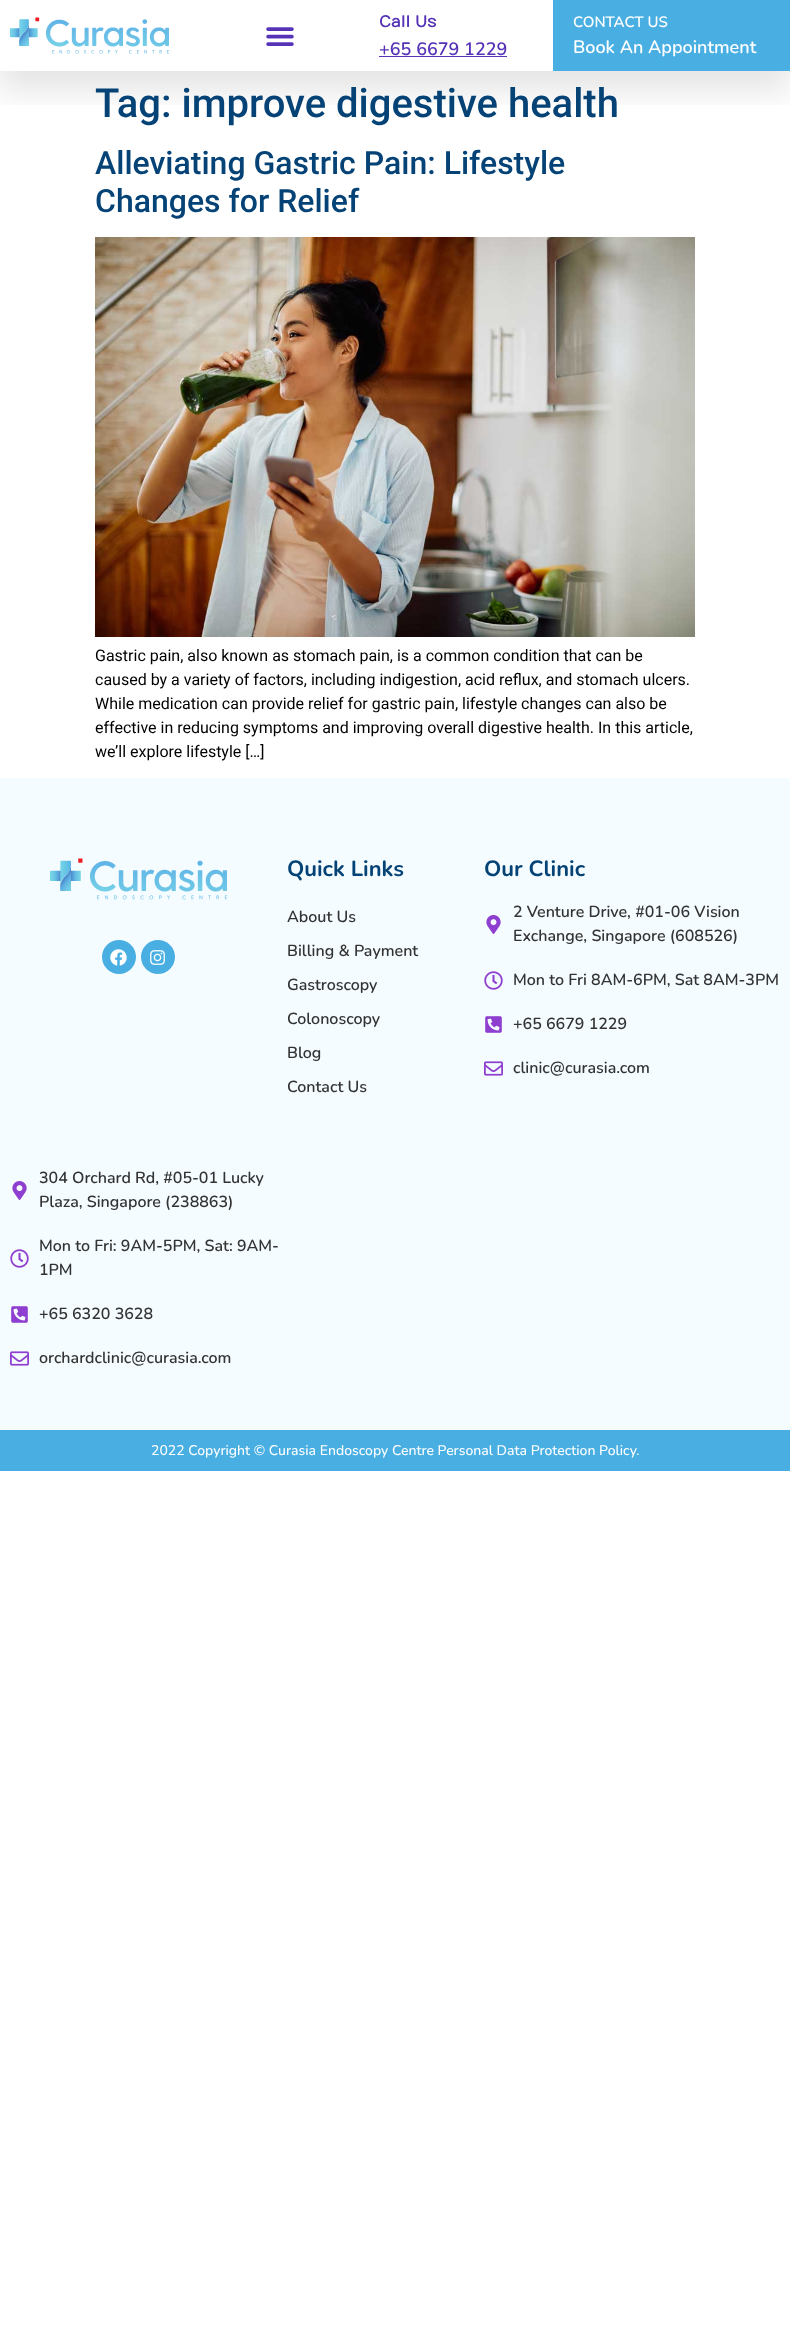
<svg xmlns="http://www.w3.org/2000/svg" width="790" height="2325">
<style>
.a{font:bold 16px Numans;fill:#5532b6}
.b{font:600 18px Nunito;fill:#5532b6}
.c{font:600 15px Nunito;fill:#fff}
.d{font:600 18px Nunito;fill:#fff}
.e{font:500 40px Roboto;fill:#054376}
.f{font:500 32px Roboto;fill:#054376}
.g{font:16px Roboto;fill:#000}
.h{font:bold 22px Nunito;fill:#054376}
.i{font:600 16px Nunito;fill:#333}
.j{font:500 14px Nunito;fill:#fff}
</style>
<defs>
<clipPath id="clip1"><path d="M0 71h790v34H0z"/></clipPath>
</defs>
<rect width="100%" height="100%" fill="#fff"/>
<g clip-path="url(#clip1)">
<path fill="#0000001c" filter="blur(17px)" d="M-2 15h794v75H-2z"/>
</g>
<image href="1.png" x="10" y="17" width="159" height="37"/>
<image href="2.png" x="266" y="27" width="28" height="19"/>
<path fill="#5532b6" d="M379 56h128v1H379z"/>
<path fill="#49afe3" d="M553 0h237v71H553z"/>
<image href="3.png" x="95" y="237" width="600" height="400"/>
<path fill="#f4fcff" d="M0 778h790v652H0z"/>
<image href="4.png" x="50" y="858" width="177" height="42"/>
<circle fill="#49afe3" cx="119" cy="957" r="17"/>
<image href="5.png" x="110" y="949" width="17" height="17"/>
<circle fill="#49afe3" cx="158" cy="957" r="17"/>
<image href="6.png" x="150" y="950" width="15" height="15"/>
<image href="7.png" x="486" y="915" width="15" height="19"/>
<image href="8.png" x="484" y="971" width="19" height="19"/>
<image href="9.png" x="485" y="1016" width="17" height="17"/>
<image href="10.png" x="484" y="1061" width="19" height="15"/>
<image href="7.png" x="12" y="1181" width="15" height="19"/>
<image href="8.png" x="10" y="1249" width="19" height="19"/>
<image href="9.png" x="11" y="1306" width="17" height="17"/>
<image href="10.png" x="10" y="1351" width="19" height="15"/>
<path fill="#49afe3" d="M0 1430h790v41H0z"/>
<text class="a" x="379" y="27">Call Us</text>
<text class="b" x="379" y="55">+65 6679 1229</text>
<text class="c" x="573" y="27">CONTACT US</text>
<text class="d" x="573" y="53">Book An Appointment</text>
<text class="e" x="95" y="117">Tag: improve digestive health</text>
<text class="f" x="95" y="174">Alleviating Gastric Pain: Lifestyle</text>
<text class="f" x="95" y="212">Changes for Relief</text>
<text class="g" x="95" y="661">Gastric pain, also known as stomach pain, is a common condition that can be</text>
<text class="g" x="95" y="685">caused by a variety of factors, including indigestion, acid reflux, and stomach ulcers.</text>
<text class="g" x="95" y="709">While medication can provide relief for gastric pain, lifestyle changes can also be</text>
<text class="g" x="95" y="733">effective in reducing symptoms and improving overall digestive health. In this article,</text>
<text class="g" x="95" y="757">we’ll explore lifestyle […]</text>
<text class="h" x="287" y="876">Quick Links</text>
<text class="i" x="287" y="922">About Us</text>
<text class="i" x="287" y="956">Billing &amp; Payment</text>
<text class="i" x="287" y="990">Gastroscopy</text>
<text class="i" x="287" y="1024">Colonoscopy</text>
<text class="i" x="287" y="1058">Blog</text>
<text class="i" x="287" y="1092">Contact Us</text>
<text class="h" x="484" y="876">Our Clinic</text>
<text class="i" x="513" y="917">2 Venture Drive, #01-06 Vision</text>
<text class="i" x="513" y="941">Exchange, Singapore (608526)</text>
<text class="i" x="513" y="985">Mon to Fri 8AM-6PM, Sat 8AM-3PM</text>
<text class="i" x="513" y="1029">+65 6679 1229</text>
<text class="i" x="513" y="1073">clinic@curasia.com</text>
<text class="i" x="39" y="1183">304 Orchard Rd, #05-01 Lucky</text>
<text class="i" x="39" y="1207">Plaza, Singapore (238863)</text>
<text class="i" x="39" y="1251">Mon to Fri: 9AM-5PM, Sat: 9AM-</text>
<text class="i" x="39" y="1275">1PM</text>
<text class="i" x="39" y="1319">+65 6320 3628</text>
<text class="i" x="39" y="1363">orchardclinic@curasia.com</text>
<text class="j" x="151" y="1455">2022 Copyright © Curasia Endoscopy Centre Personal Data Protection Policy.</text>
</svg>
